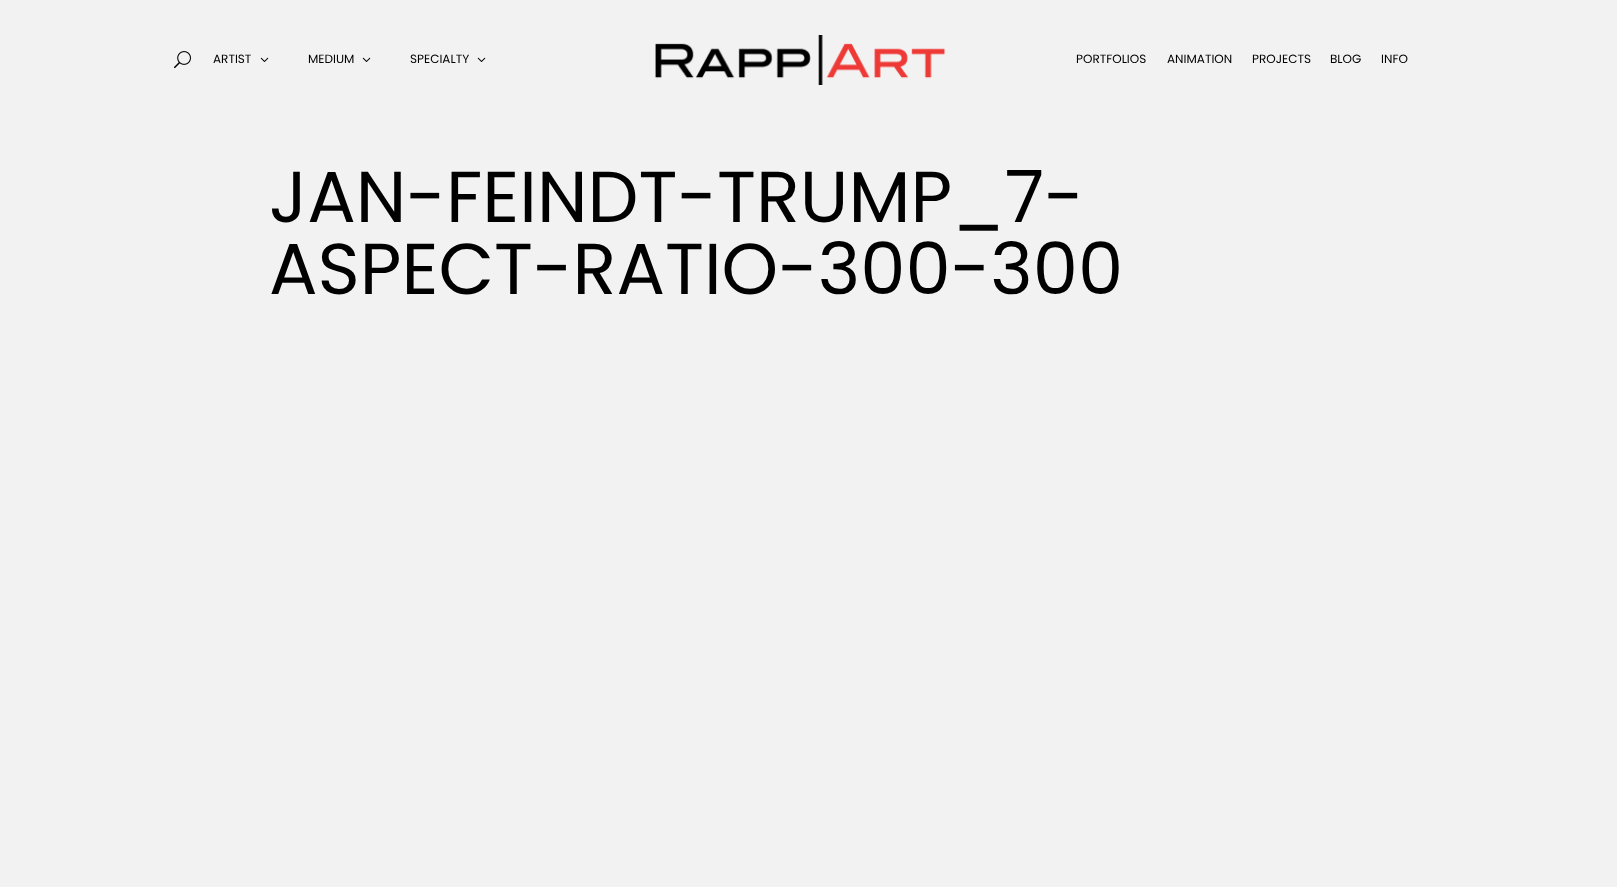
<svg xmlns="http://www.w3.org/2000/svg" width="1617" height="887">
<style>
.a{font:12px Poppins;fill:#000}
.b{font:72px Poppins;fill:#000}
</style>
<rect width="100%" height="100%" fill="#f2f2f2"/>
<image href="1.png" x="174" y="51" width="17" height="18"/>
<image href="2.png" x="260" y="57" width="9" height="5"/>
<image href="2.png" x="362" y="57" width="9" height="5"/>
<image href="2.png" x="477" y="57" width="9" height="5"/>
<image href="3.png" x="655" y="35" width="291" height="50"/>
<text class="a" x="213" y="63">ARTIST</text>
<text class="a" x="308" y="63">MEDIUM</text>
<text class="a" x="410" y="63">SPECIALTY</text>
<text class="a" x="1076" y="63">PORTFOLIOS</text>
<text class="a" x="1167" y="63">ANIMATION</text>
<text class="a" x="1252" y="63">PROJECTS</text>
<text class="a" x="1330" y="63">BLOG</text>
<text class="a" x="1381" y="63">INFO</text>
<text class="b" x="269" y="222">JAN-FEINDT-TRUMP_7-</text>
<text class="b" x="269" y="294">ASPECT-RATIO-300-300</text>
</svg>
